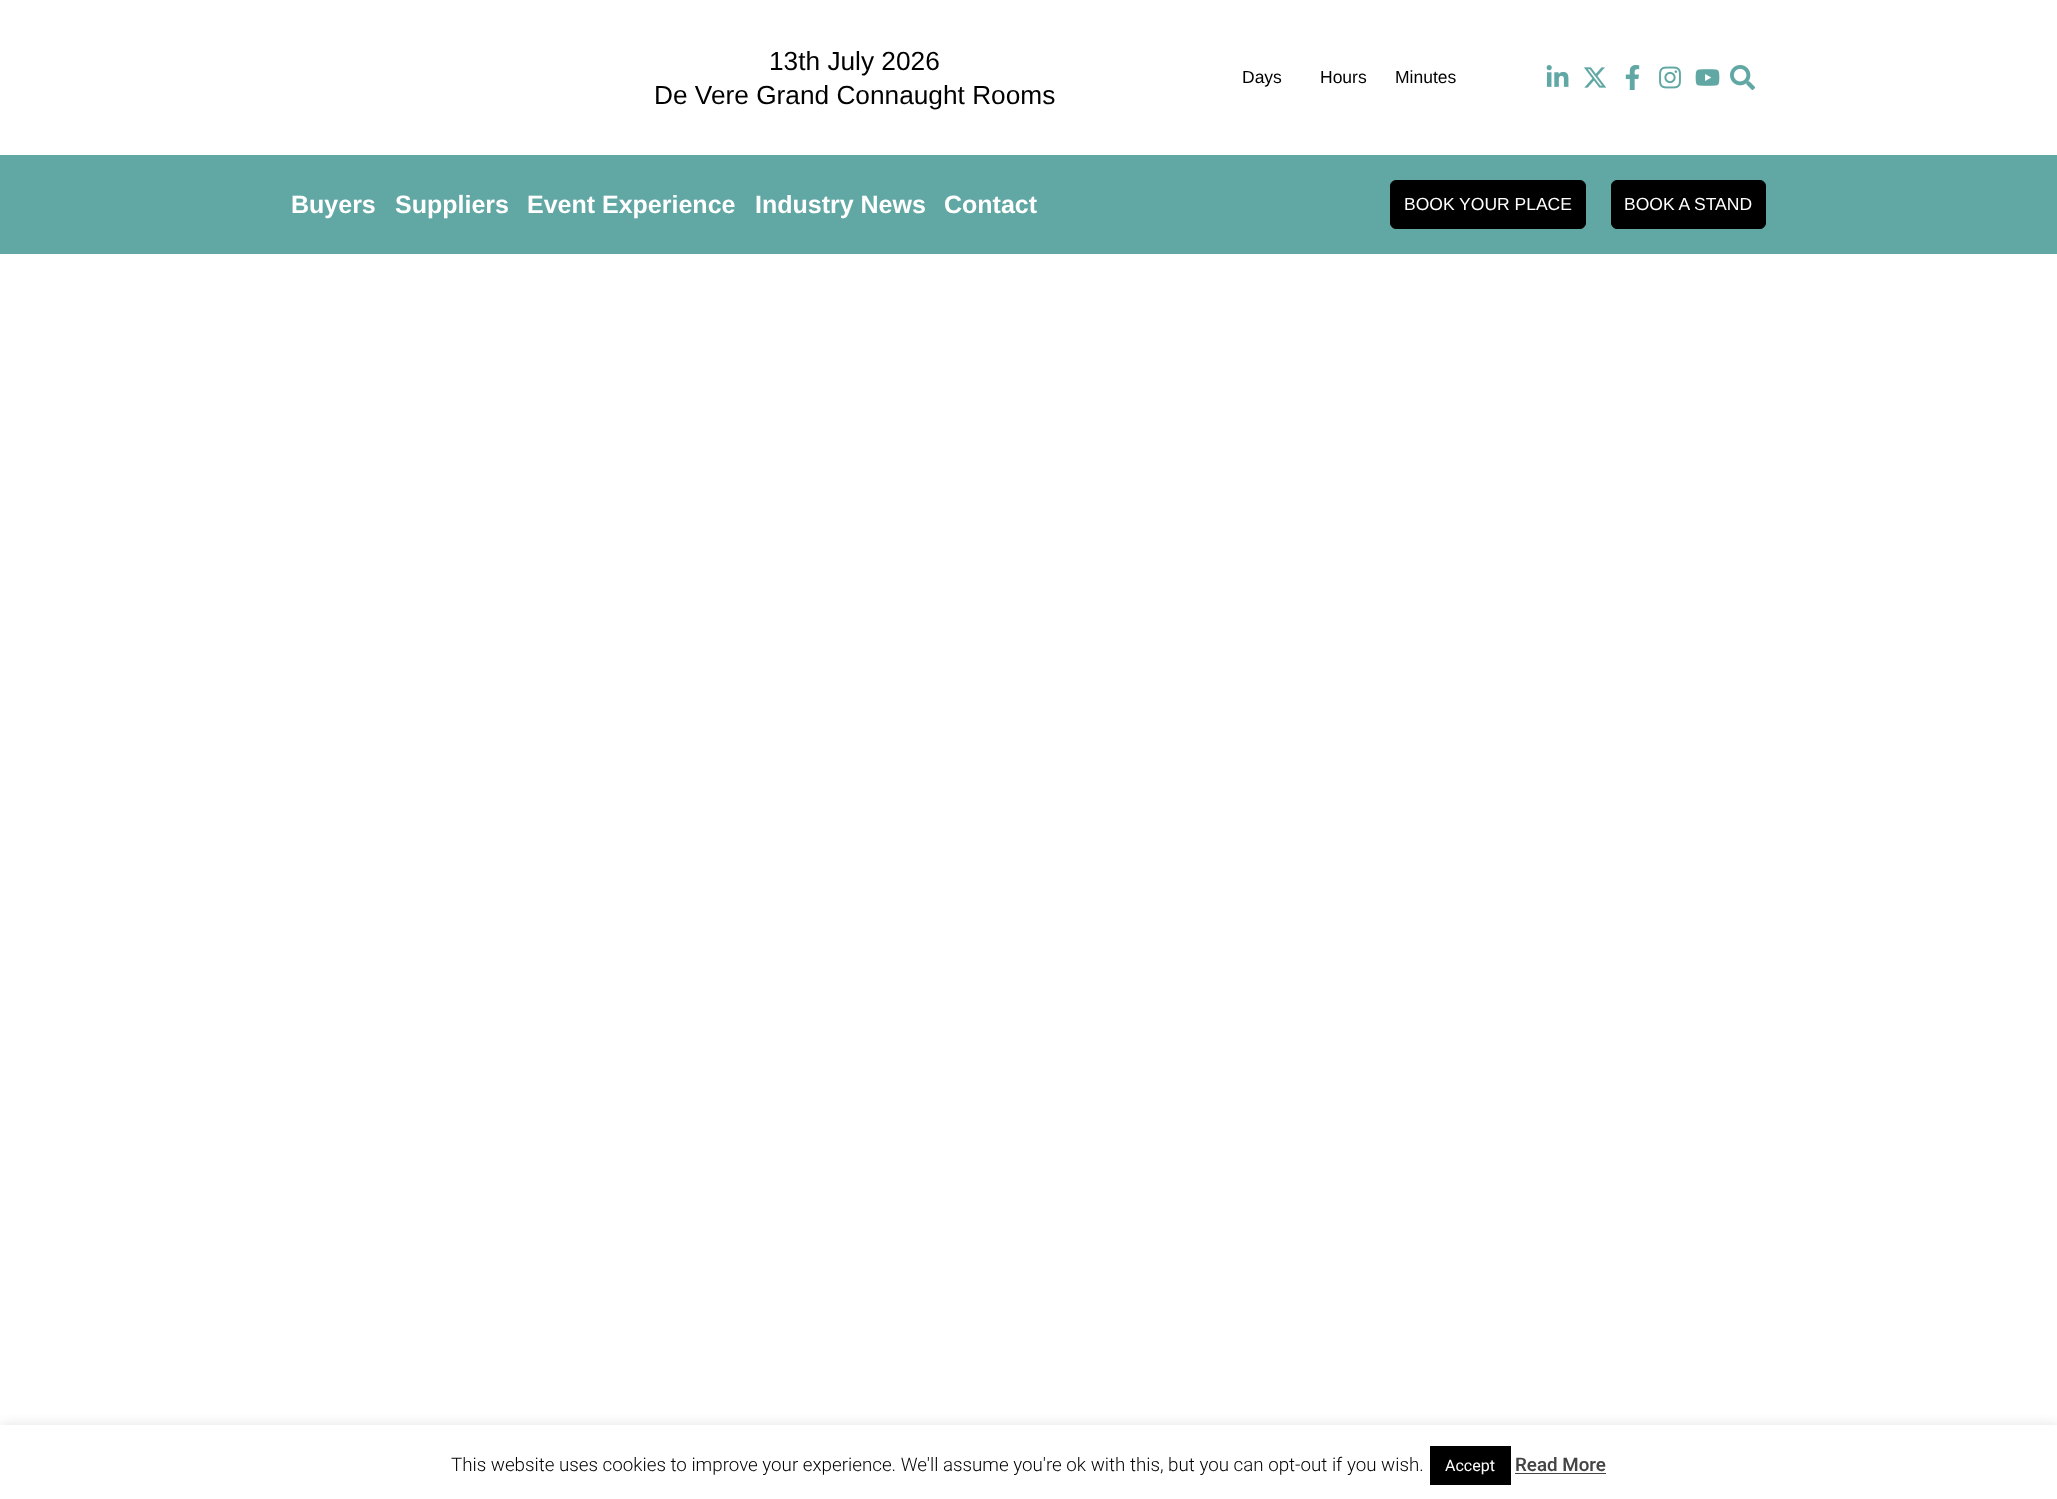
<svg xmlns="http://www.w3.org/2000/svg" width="2057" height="1499">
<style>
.a{font:26.25px Liberation Sans;fill:#000}
.b{font:17.5px Liberation Sans;fill:#000}
.c{font:bold 25px Liberation Sans;fill:#fff}
.d{font:17.5px Liberation Sans;fill:#fff}
.e{font:300 18.75px Roboto;fill:#000}
.f{font:16px Roboto;fill:#fff}
.g{font:500 18.75px Roboto;fill:#444}
</style>
<defs>
<clipPath id="clip1"><path d="M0 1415h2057v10H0z"/></clipPath>
</defs>
<rect width="100%" height="100%" fill="#fff"/>
<image href="1.png" x="1546" y="65" width="23" height="22"/>
<image href="2.png" x="1583" y="67" width="24" height="21"/>
<image href="3.png" x="1625" y="65" width="15" height="25"/>
<image href="4.png" x="1659" y="66" width="22" height="23"/>
<image href="5.png" x="1695" y="69" width="25" height="17"/>
<image href="6.png" x="1730" y="65" width="25" height="25"/>
<path fill="#61a8a4" d="M0 155h2057v99H0z"/>
<rect fill="#000" stroke="#000" x="1390.5" y="180.5" width="195" height="48" rx="5.5"/>
<rect fill="#000" stroke="#000" x="1611.5" y="180.5" width="154" height="48" rx="5.5"/>
<g clip-path="url(#clip1)">
<path fill="#acabab4d" filter="blur(6px)" d="M0 1424h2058v75H0z"/>
</g>
<path fill="#000" d="M1430 1446h81v39H1430z"/>
<path fill="#444" d="M1515 1473h91v1H1515z"/>
<text class="a" x="769" y="70">13th July 2026</text>
<text class="a" x="654" y="104">De Vere Grand Connaught Rooms</text>
<text class="b" x="1242" y="83">Days</text>
<text class="b" x="1320" y="83">Hours</text>
<text class="b" x="1395" y="83">Minutes</text>
<text class="c" x="291" y="213">Buyers</text>
<text class="c" x="395" y="213">Suppliers</text>
<text class="c" x="527" y="213">Event Experience</text>
<text class="c" x="755" y="213">Industry News</text>
<text class="c" x="944" y="213">Contact</text>
<text class="d" x="1404" y="210">BOOK YOUR PLACE</text>
<text class="d" x="1624" y="210">BOOK A STAND</text>
<text class="e" x="451" y="1471">This website uses cookies to improve your experience. We'll assume you're ok with this, but you can opt-out if you wish.</text>
<text class="f" x="1445" y="1471">Accept</text>
<text class="g" x="1515" y="1471">Read More</text>
</svg>
